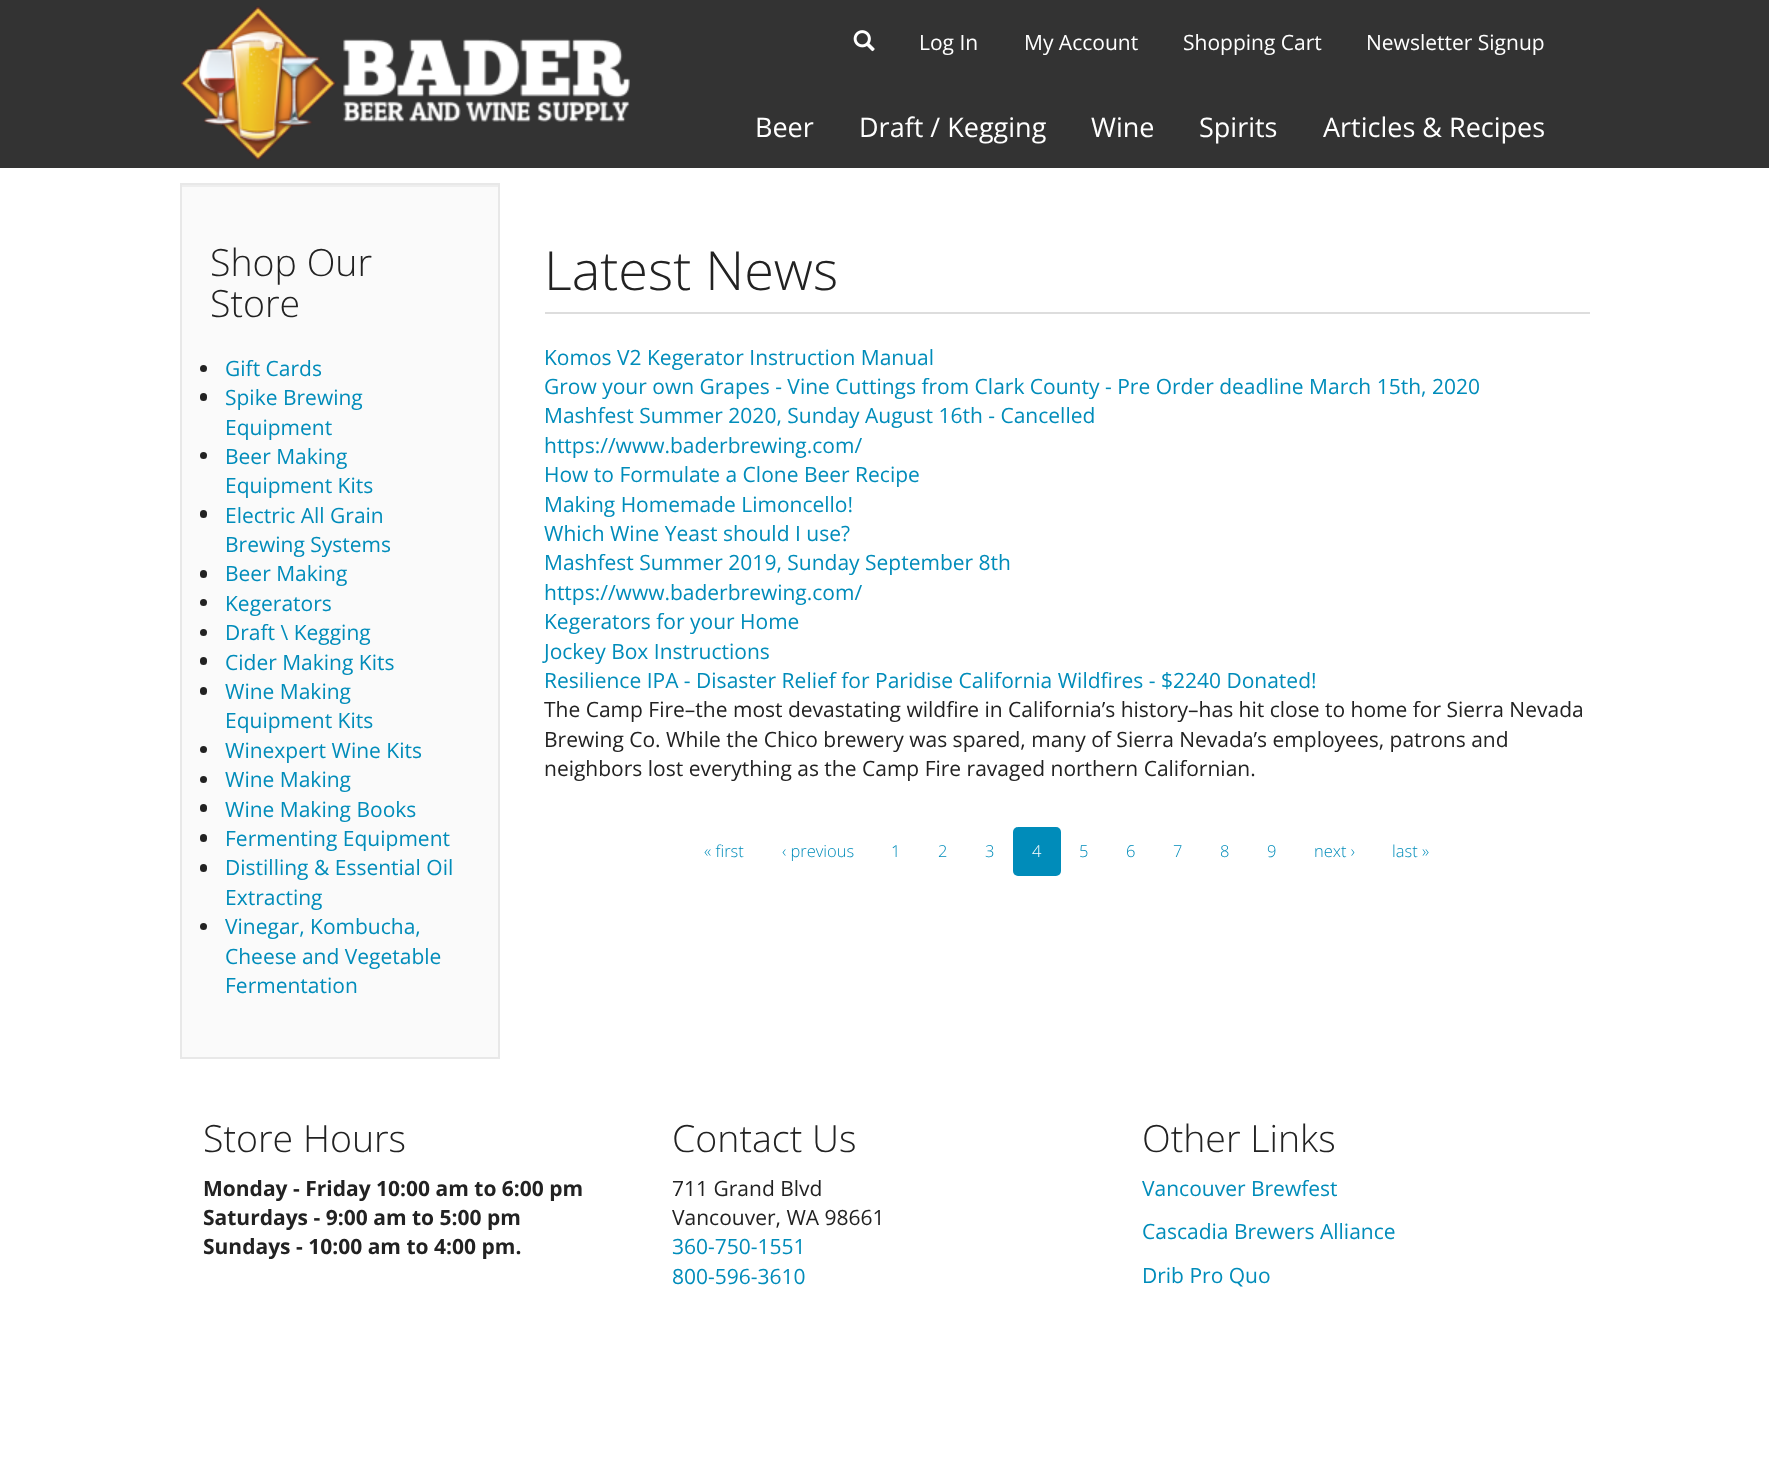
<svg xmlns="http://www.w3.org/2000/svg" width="1769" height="1457">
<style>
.a{font:21px Open Sans;fill:#fff}
.b{font:27px Open Sans;fill:#fff}
.c{font:300 37.5px Open Sans;fill:#222}
.d{font:21px Open Sans;fill:#008cba}
.e{font:300 54px Open Sans;fill:#222}
.f{font:21px Open Sans;fill:#222}
.g{font:300 16.5px Open Sans;fill:#008cba}
.h{font:300 16.5px Open Sans;fill:#fff}
.i{font:bold 21px Open Sans;fill:#222}
</style>
<rect width="100%" height="100%" fill="#fff"/>
<path fill="#333" d="M0 0h1769v168H0z"/>
<image href="1.png" x="180" y="6" width="450" height="155"/>
<image href="2.png" x="853" y="30" width="22" height="22"/>
<path fill="#fafafa" d="M182 187h316v870H182z"/>
<path fill="#eee" d="M182 185h316v2H182z"/>
<path fill="none" stroke="#e8e8e8" stroke-width="2" d="M181 184h318v874H181z"/>
<circle fill="#222" cx="203.5" cy="368.5" r="3.5"/>
<rect fill="#222" x="200" y="393" width="7" height="8" rx="3.5"/>
<circle fill="#222" cx="203.5" cy="455.5" r="3.5"/>
<rect fill="#222" x="200" y="510" width="7" height="8" rx="3.5"/>
<rect fill="#222" x="200" y="570" width="7" height="8" rx="3.5"/>
<circle fill="#222" cx="203.5" cy="602.5" r="3.5"/>
<circle fill="#222" cx="203.5" cy="632.5" r="3.5"/>
<rect fill="#222" x="200" y="657" width="7" height="8" rx="3.5"/>
<rect fill="#222" x="200" y="687" width="7" height="8" rx="3.5"/>
<circle fill="#222" cx="203.5" cy="749.5" r="3.5"/>
<circle fill="#222" cx="203.5" cy="779.5" r="3.5"/>
<rect fill="#222" x="200" y="804" width="7" height="8" rx="3.5"/>
<rect fill="#222" x="200" y="834" width="7" height="8" rx="3.5"/>
<rect fill="#222" x="200" y="864" width="7" height="8" rx="3.5"/>
<circle fill="#222" cx="203.5" cy="926.5" r="3.5"/>
<path fill="#ddd" d="M545 312h1045v2H545z"/>
<rect fill="#008cba" x="1013" y="827" width="48" height="49" rx="5"/>
<text class="a" x="919" y="50">Log In</text>
<text class="a" x="1024" y="50">My Account</text>
<text class="a" x="1183" y="50">Shopping Cart</text>
<text class="a" x="1366" y="50">Newsletter Signup</text>
<text class="b" x="755" y="137">Beer</text>
<text class="b" x="859" y="137">Draft / Kegging</text>
<text class="b" x="1091" y="137">Wine</text>
<text class="b" x="1199" y="137">Spirits</text>
<text class="b" x="1323" y="137">Articles &amp; Recipes</text>
<text class="c" x="210" y="276">Shop Our</text>
<text class="c" x="210" y="317">Store</text>
<text class="d" x="225" y="376">Gift Cards</text>
<text class="d" x="225" y="405">Spike Brewing</text>
<text class="d" x="225" y="435">Equipment</text>
<text class="d" x="225" y="464">Beer Making</text>
<text class="d" x="225" y="493">Equipment Kits</text>
<text class="d" x="225" y="523">Electric All Grain</text>
<text class="d" x="225" y="552">Brewing Systems</text>
<text class="d" x="225" y="581">Beer Making</text>
<text class="d" x="225" y="611">Kegerators</text>
<text class="d" x="225" y="640">Draft \ Kegging</text>
<text class="d" x="225" y="670">Cider Making Kits</text>
<text class="d" x="225" y="699">Wine Making</text>
<text class="d" x="225" y="728">Equipment Kits</text>
<text class="d" x="225" y="758">Winexpert Wine Kits</text>
<text class="d" x="225" y="787">Wine Making</text>
<text class="d" x="225" y="817">Wine Making Books</text>
<text class="d" x="225" y="846">Fermenting Equipment</text>
<text class="d" x="225" y="875">Distilling &amp; Essential Oil</text>
<text class="d" x="225" y="905">Extracting</text>
<text class="d" x="225" y="934">Vinegar, Kombucha,</text>
<text class="d" x="225" y="964">Cheese and Vegetable</text>
<text class="d" x="225" y="993">Fermentation</text>
<text class="e" x="544" y="290">Latest News</text>
<text class="d" x="544" y="365">Komos V2 Kegerator Instruction Manual</text>
<text class="d" x="544" y="394">Grow your own Grapes - Vine Cuttings from Clark County - Pre Order deadline March 15th, 2020</text>
<text class="d" x="544" y="423">Mashfest Summer 2020, Sunday August 16th - Cancelled</text>
<text class="d" x="544" y="453">https://www.baderbrewing.com/</text>
<text class="d" x="544" y="482">How to Formulate a Clone Beer Recipe</text>
<text class="d" x="544" y="512">Making Homemade Limoncello!</text>
<text class="d" x="544" y="541">Which Wine Yeast should I use?</text>
<text class="d" x="544" y="570">Mashfest Summer 2019, Sunday September 8th</text>
<text class="d" x="544" y="600">https://www.baderbrewing.com/</text>
<text class="d" x="544" y="629">Kegerators for your Home</text>
<text class="d" x="544" y="659">Jockey Box Instructions</text>
<text class="d" x="544" y="688">Resilience IPA - Disaster Relief for Paridise California Wildfires - $2240 Donated!</text>
<text class="f" x="544" y="717">The Camp Fire–the most devastating wildfire in California’s history–has hit close to home for Sierra Nevada</text>
<text class="f" x="544" y="747">Brewing Co. While the Chico brewery was spared, many of Sierra Nevada’s employees, patrons and</text>
<text class="f" x="544" y="776">neighbors lost everything as the Camp Fire ravaged northern Californian.</text>
<text class="g" x="704" y="857">« first</text>
<text class="g" x="782" y="857">‹ previous</text>
<text class="g" x="891" y="857">1</text>
<text class="g" x="938" y="857">2</text>
<text class="g" x="985" y="857">3</text>
<text class="h" x="1032" y="857">4</text>
<text class="g" x="1079" y="857">5</text>
<text class="g" x="1126" y="857">6</text>
<text class="g" x="1173" y="857">7</text>
<text class="g" x="1220" y="857">8</text>
<text class="g" x="1267" y="857">9</text>
<text class="g" x="1314" y="857">next ›</text>
<text class="g" x="1392" y="857">last »</text>
<text class="c" x="203" y="1152">Store Hours</text>
<text class="i" x="203" y="1196">Monday - Friday 10:00 am to 6:00 pm</text>
<text class="i" x="203" y="1225">Saturdays - 9:00 am to 5:00 pm</text>
<text class="i" x="203" y="1254">Sundays - 10:00 am to 4:00 pm.</text>
<text class="c" x="672" y="1152">Contact Us</text>
<text class="f" x="672" y="1196">711 Grand Blvd</text>
<text class="f" x="672" y="1225">Vancouver, WA 98661</text>
<text class="d" x="672" y="1254">360-750-1551</text>
<text class="d" x="672" y="1284">800-596-3610</text>
<text class="c" x="1142" y="1152">Other Links</text>
<text class="d" x="1142" y="1196">Vancouver Brewfest</text>
<text class="d" x="1142" y="1239">Cascadia Brewers Alliance</text>
<text class="d" x="1142" y="1283">Drib Pro Quo</text>
</svg>
